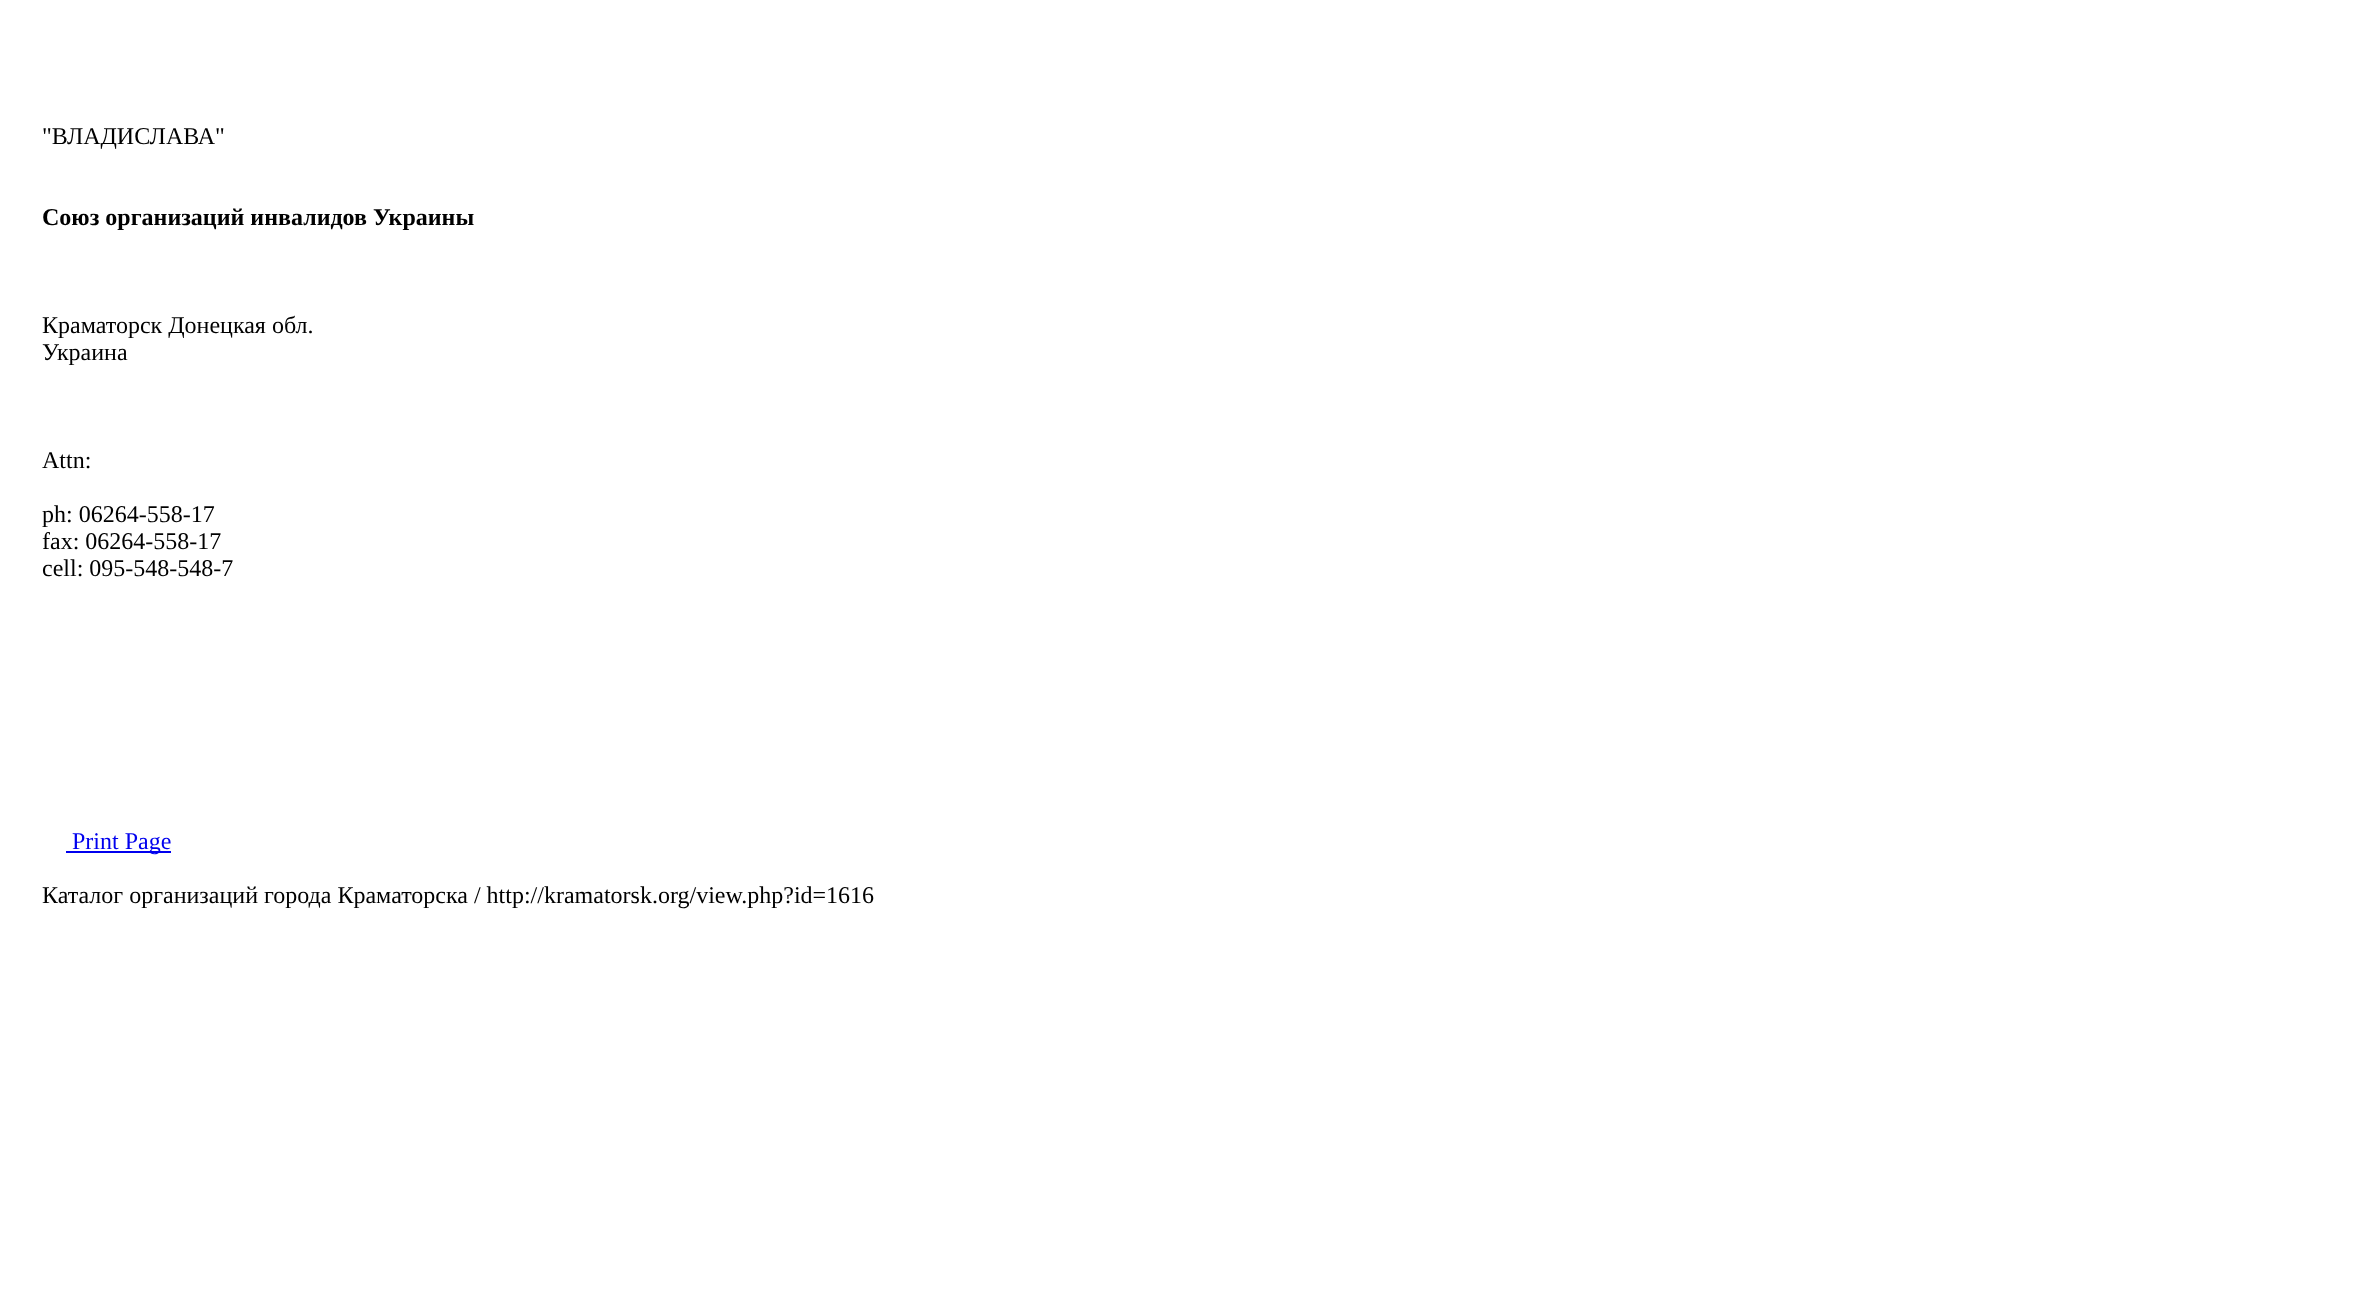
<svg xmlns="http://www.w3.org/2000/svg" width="2361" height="1300">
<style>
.a{font:24px Liberation Serif;fill:#000}
.b{font:bold 24px Liberation Serif;fill:#000}
.c{font:24px Liberation Serif;fill:#00e}
</style>
<rect width="100%" height="100%" fill="#fff"/>
<path fill="#00e" d="M66 851h105v2H66z"/>
<text class="a" x="42" y="144">"ВЛАДИСЛАВА"</text>
<text class="b" x="42" y="225">Союз организаций инвалидов Украины</text>
<text class="a" x="42" y="333">Краматорск Донецкая обл.</text>
<text class="a" x="42" y="360">Украина</text>
<text class="a" x="42" y="468">Attn:</text>
<text class="a" x="42" y="522">ph: 06264-558-17</text>
<text class="a" x="42" y="549">fax: 06264-558-17</text>
<text class="a" x="42" y="576">cell: 095-548-548-7</text>
<text class="c" x="72" y="849">Print Page</text>
<text class="a" x="42" y="903">Каталог организаций города Краматорска / http://kramatorsk.org/view.php?id=1616</text>
</svg>
